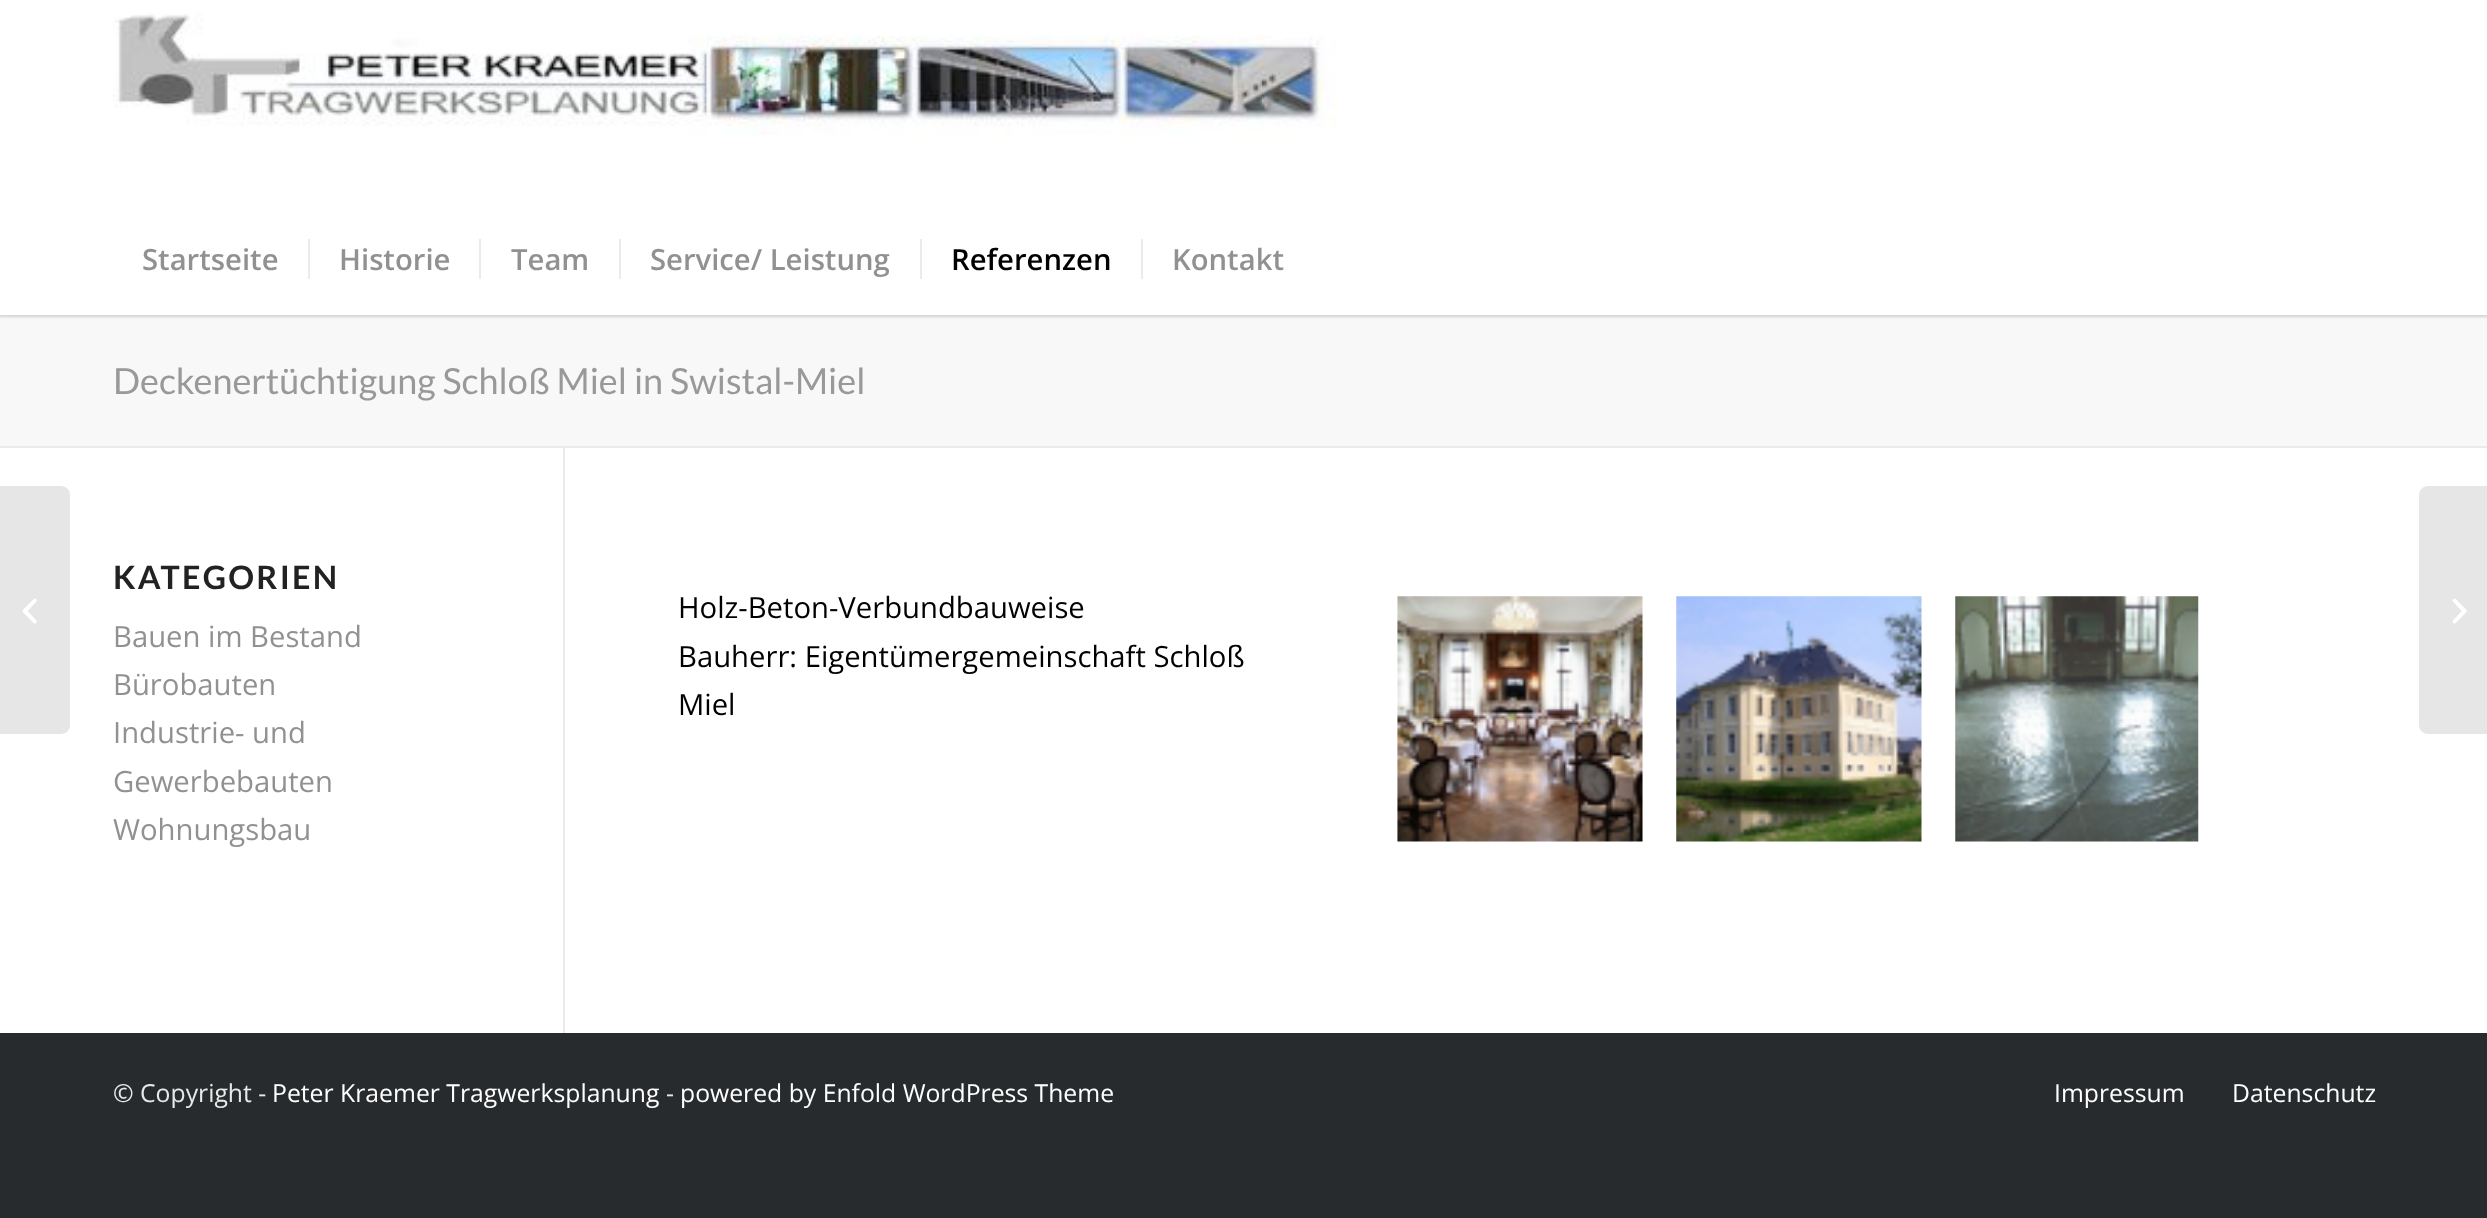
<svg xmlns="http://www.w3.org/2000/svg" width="2487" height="1218">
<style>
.a{font:600 29.25px Open Sans;fill:#919191}
.b{font:600 29.25px Open Sans;fill:#000}
.c{font:36px Lato;fill:#999}
.d{font:bold 32.25px Lato;letter-spacing:2.25px;fill:#222}
.e{font:29.25px Open Sans;fill:#919191}
.f{font:29.25px Open Sans;fill:#000}
.g{font:24.75px Open Sans;fill:#e8e8e8}
.h{font:24.75px Open Sans;fill:#fff}
</style>
<defs>
<clipPath id="clip1"><path d="M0 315h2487v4H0z"/></clipPath>
</defs>
<rect width="100%" height="100%" fill="#282b2e"/>
<path fill="#fff" d="M0 0h2487v1033H0z"/>
<path fill="#f8f8f8" d="M0 317h2487v129H0z"/>
<path fill="#ebebeb" d="M0 315h2487v2H0z"/>
<g clip-path="url(#clip1)">
<path fill="#0000001a" filter="blur(2px)" d="M-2 -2h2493v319H-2z"/>
</g>
<image href="1.png" x="113" y="13" width="1224" height="122"/>
<path fill="#ebebeb" d="M308 239h2v40H308z"/>
<path fill="#ebebeb" d="M479 239h2v40H479z"/>
<path fill="#ebebeb" d="M619 239h2v40H619z"/>
<path fill="#ebebeb" d="M920 239h2v40H920z"/>
<path fill="#ebebeb" d="M1141 239h2v40H1141z"/>
<path fill="#e6e6e6" d="M0 486h61c5 0 9 4 9 9v230c0 5-4 9-9 9h-61z"/>
<image href="2.png" x="22" y="598" width="15" height="26"/>
<path fill="#ebebeb" d="M0 446h2487v2H0z"/>
<path fill="#ebebeb" d="M563 448h2v587H563z"/>
<image href="3.png" x="1397" y="596" width="246" height="246"/>
<image href="4.png" x="1676" y="596" width="246" height="246"/>
<image href="5.png" x="1955" y="596" width="244" height="246"/>
<path fill="#282b2e" d="M563 1033h2v2H563z"/>
<path fill="#e6e6e6" d="M2428 486h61v248h-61c-5 0-9-4-9-9v-230c0-5 4-9 9-9z"/>
<image href="6.png" x="2452" y="598" width="15" height="26"/>
<text class="a" x="142" y="270">Startseite</text>
<text class="a" x="339" y="270">Historie</text>
<text class="a" x="511" y="270">Team</text>
<text class="a" x="650" y="270">Service/ Leistung</text>
<text class="b" x="951" y="270">Referenzen</text>
<text class="a" x="1172" y="270">Kontakt</text>
<text class="c" x="113" y="394">Deckenertüchtigung Schloß Miel in Swistal-Miel</text>
<text class="d" x="113" y="589">KATEGORIEN</text>
<text class="e" x="113" y="647">Bauen im Bestand</text>
<text class="e" x="113" y="695">Bürobauten</text>
<text class="e" x="113" y="743">Industrie- und</text>
<text class="e" x="113" y="792">Gewerbebauten</text>
<text class="e" x="113" y="840">Wohnungsbau</text>
<text class="f" x="678" y="618">Holz-Beton-Verbundbauweise</text>
<text class="f" x="678" y="667">Bauherr: Eigentümergemeinschaft Schloß</text>
<text class="f" x="678" y="715">Miel</text>
<text class="g" x="113" y="1102">© Copyright -</text>
<text class="h" x="272" y="1102">Peter Kraemer Tragwerksplanung</text>
<text class="g" x="666" y="1102">-</text>
<text class="h" x="680" y="1102">powered by Enfold WordPress Theme</text>
<text class="h" x="2054" y="1102">Impressum</text>
<text class="h" x="2232" y="1102">Datenschutz</text>
</svg>
